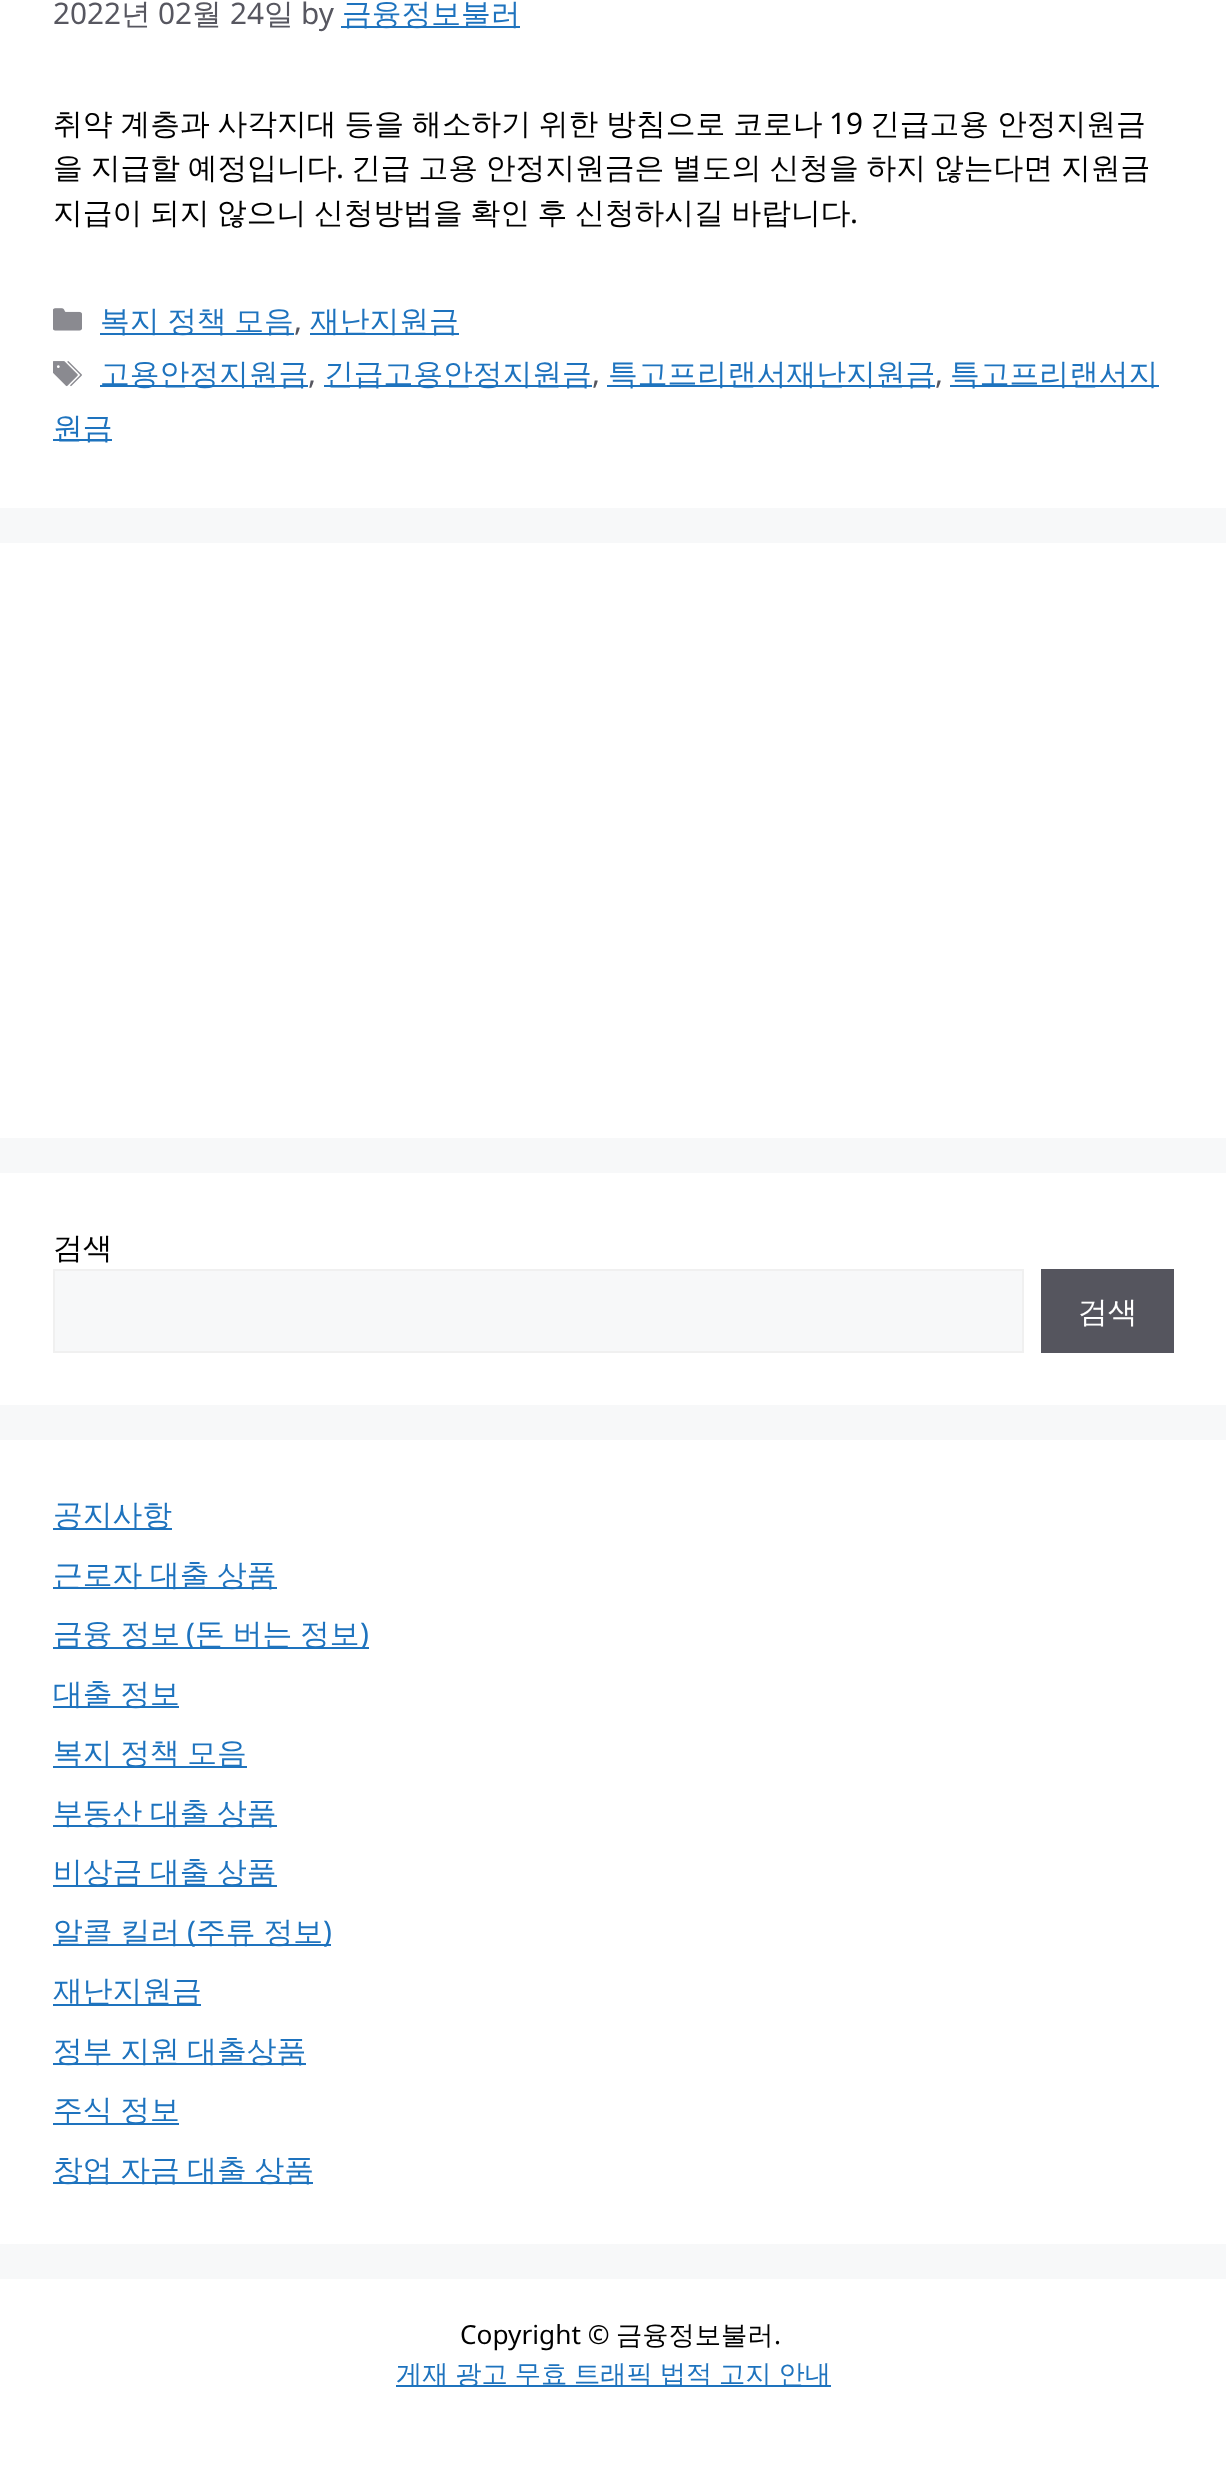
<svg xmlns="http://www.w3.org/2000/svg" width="1226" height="2467">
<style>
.a{font:29.75px Noto Sans;fill:#575760}
.b{font:500 29.75px WenQuanYi Zen Hei;fill:#575760}
.c{font:500 29.75px WenQuanYi Zen Hei;fill:#1e73be}
.d{font:500 29.75px WenQuanYi Zen Hei;fill:#000}
.e{font:29.75px Noto Sans;fill:#000}
.f{font:500 29.75px WenQuanYi Zen Hei;fill:#fff}
.g{font:29.75px Noto Sans;fill:#1e73be}
.h{font:26.25px Noto Sans;fill:#000}
.i{font:500 26.25px WenQuanYi Zen Hei;fill:#000}
.j{font:500 26.25px WenQuanYi Zen Hei;fill:#1e73be}
</style>
<rect width="100%" height="100%" fill="#f7f8f9"/>
<path fill="#fff" d="M0 0h1226v508H0z"/>
<path fill="#1e73be" d="M341 26h179v2H341z"/>
<image href="1.png" x="53" y="308" width="29" height="23"/>
<path fill="#1e73be" d="M100 333h194v2H100z"/>
<path fill="#1e73be" d="M310 333h149v2H310z"/>
<image href="2.png" x="53" y="361" width="29" height="26"/>
<path fill="#1e73be" d="M100 385h208v2H100z"/>
<path fill="#1e73be" d="M324 385h268v2H324z"/>
<path fill="#1e73be" d="M607 385h328v2H607z"/>
<path fill="#1e73be" d="M950 385h209v2H950z"/>
<path fill="#1e73be" d="M53 439h59v2H53z"/>
<path fill="#fff" d="M0 543h1226v595H0z"/>
<path fill="#fff" d="M0 1173h1226v232H0z"/>
<path fill="#f7f8f9" stroke="#f0f0f0" stroke-width="2" d="M54 1270h969v82H54z"/>
<path fill="#55555e" d="M1041 1269h133v84H1041z"/>
<path fill="#fff" d="M0 1440h1226v804H0z"/>
<path fill="#1e73be" d="M53 1528h119v2H53z"/>
<path fill="#1e73be" d="M53 1587h224v2H53z"/>
<path fill="#1e73be" d="M53 1647h316v2H53z"/>
<path fill="#1e73be" d="M53 1706h126v2H53z"/>
<path fill="#1e73be" d="M53 1766h194v2H53z"/>
<path fill="#1e73be" d="M53 1825h224v2H53z"/>
<path fill="#1e73be" d="M53 1885h224v2H53z"/>
<path fill="#1e73be" d="M53 1944h278v2H53z"/>
<path fill="#1e73be" d="M53 2004h148v2H53z"/>
<path fill="#1e73be" d="M53 2063h253v2H53z"/>
<path fill="#1e73be" d="M53 2123h126v2H53z"/>
<path fill="#1e73be" d="M53 2182h260v2H53z"/>
<path fill="#fff" d="M0 2279h1226v188H0z"/>
<path fill="#1e73be" d="M396 2385h435v2H396z"/>
<text class="a" x="53" y="24">2022</text>
<text class="b" x="121" y="24">년</text>
<text class="a" x="158" y="24">02</text>
<text class="b" x="192" y="24">월</text>
<text class="a" x="230" y="24">24</text>
<text class="b" x="264" y="24">일</text>
<text class="a" x="301" y="24">by</text>
<text class="c" x="342" y="24">금융정보불러</text>
<text class="d" x="53" y="134" word-spacing="-1">취약 계층과 사각지대 등을 해소하기 위한 방침으로 코로나</text>
<text class="e" x="829" y="134">19</text>
<text class="d" x="870" y="134" word-spacing="-1">긴급고용 안정지원금</text>
<text class="d" x="53" y="178" word-spacing="-1">을 지급할 예정입니다</text>
<text class="e" x="336" y="178">.</text>
<text class="d" x="351" y="178" word-spacing="-1">긴급 고용 안정지원금은 별도의 신청을 하지 않는다면 지원금</text>
<text class="d" x="53" y="223" word-spacing="-1.25">지급이 되지 않으니 신청방법을 확인 후 신청하시길 바랍니다</text>
<text class="e" x="850" y="223">.</text>
<text class="c" x="100" y="331" word-spacing="-1.25">복지 정책 모음</text>
<text class="a" x="294" y="331">,</text>
<text class="c" x="310" y="331">재난지원금</text>
<text class="c" x="100" y="384">고용안정지원금</text>
<text class="a" x="308" y="384">,</text>
<text class="c" x="324" y="384">긴급고용안정지원금</text>
<text class="a" x="592" y="384">,</text>
<text class="c" x="608" y="384">특고프리랜서재난지원금</text>
<text class="a" x="935" y="384">,</text>
<text class="c" x="950" y="384">특고프리랜서지</text>
<text class="c" x="53" y="438">원금</text>
<text class="d" x="53" y="1258">검색</text>
<text class="f" x="1078" y="1322">검색</text>
<text class="c" x="53" y="1525">공지사항</text>
<text class="c" x="53" y="1585" word-spacing="-1.25">근로자 대출 상품</text>
<text class="c" x="53" y="1644" word-spacing="-1">금융 정보</text>
<text class="g" x="186" y="1644">(</text>
<text class="c" x="195" y="1644" word-spacing="-1">돈 버는 정보</text>
<text class="g" x="360" y="1644">)</text>
<text class="c" x="53" y="1704" word-spacing="-1.25">대출 정보</text>
<text class="c" x="53" y="1763" word-spacing="-1.25">복지 정책 모음</text>
<text class="c" x="53" y="1823" word-spacing="-1.25">부동산 대출 상품</text>
<text class="c" x="53" y="1882" word-spacing="-1.25">비상금 대출 상품</text>
<text class="c" x="53" y="1942" word-spacing="-1">알콜 킬러</text>
<text class="g" x="187" y="1942">(</text>
<text class="c" x="196" y="1942" word-spacing="-1">주류 정보</text>
<text class="g" x="323" y="1942">)</text>
<text class="c" x="53" y="2001">재난지원금</text>
<text class="c" x="53" y="2061" word-spacing="-1.25">정부 지원 대출상품</text>
<text class="c" x="53" y="2120" word-spacing="-1.25">주식 정보</text>
<text class="c" x="53" y="2180" word-spacing="-1.25">창업 자금 대출 상품</text>
<text class="h" x="460" y="2344">Copyright ©</text>
<text class="i" x="616" y="2344">금융정보불러</text>
<text class="h" x="774" y="2344">.</text>
<text class="j" x="396" y="2383" word-spacing="-1">게재 광고 무효 트래픽 법적 고지 안내</text>
</svg>
